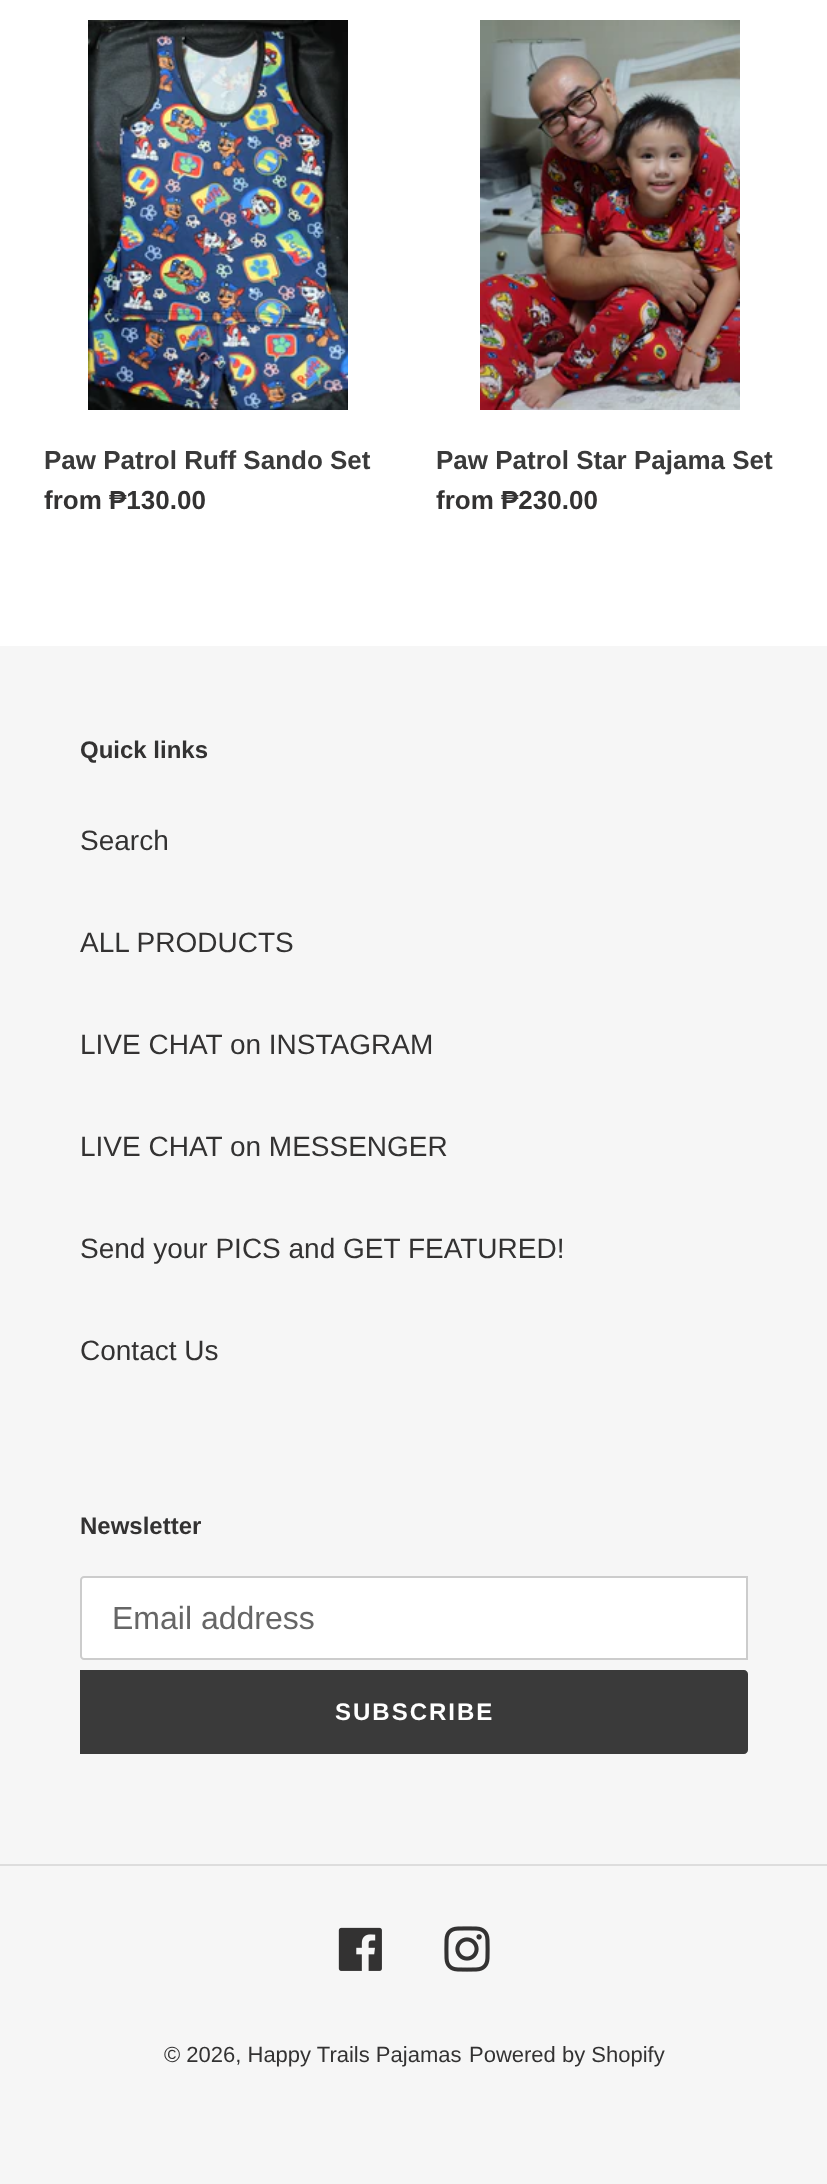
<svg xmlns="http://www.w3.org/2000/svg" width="827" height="2184">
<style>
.a{font:bold 26px Liberation Sans;fill:#3a3a3a}
.b{font:bold 26px Liberation Sans;fill:#333232}
.c{font:bold 24px Liberation Sans;fill:#333232}
.d{font:28px Liberation Sans;fill:#333232}
.e{font:32px Liberation Sans;fill:#666}
.f{font:bold 24px Liberation Sans;letter-spacing:2px;fill:#fff}
.g{font:22px Liberation Sans;fill:#333232}
</style>
<rect width="100%" height="100%" fill="#fff"/>
<image href="1.png" x="88" y="20" width="260" height="390"/>
<image href="2.png" x="480" y="20" width="260" height="390"/>
<path fill="#f6f6f6" d="M0 646h827v1538H0z"/>
<path fill="#fff" stroke="#ccc" stroke-width="2" d="M84 1577h663v82h-663c-1.5 0-3-1.5-3-3v-76c0-1.5 1.5-3 3-3z"/>
<path fill="#3a3a3a" d="M80 1670h664c2 0 4 2 4 4v76c0 2-2 4-4 4h-664z"/>
<path fill="#ddd" d="M0 1864h827v2H0z"/>
<image href="3.png" x="338" y="1927" width="44" height="44"/>
<image href="4.png" x="444" y="1926" width="46" height="46"/>
<text class="a" x="44" y="469">Paw Patrol Ruff Sando Set</text>
<text class="b" x="44" y="509">from ₱130.00</text>
<text class="a" x="436" y="469">Paw Patrol Star Pajama Set</text>
<text class="b" x="436" y="509">from ₱230.00</text>
<text class="c" x="80" y="758">Quick links</text>
<text class="d" x="80" y="850">Search</text>
<text class="d" x="80" y="952">ALL PRODUCTS</text>
<text class="d" x="80" y="1054">LIVE CHAT on INSTAGRAM</text>
<text class="d" x="80" y="1156">LIVE CHAT on MESSENGER</text>
<text class="d" x="80" y="1258">Send your PICS and GET FEATURED!</text>
<text class="d" x="80" y="1360">Contact Us</text>
<text class="c" x="80" y="1534">Newsletter</text>
<text class="e" x="112" y="1629">Email address</text>
<text class="f" x="335" y="1720">SUBSCRIBE</text>
<text class="g" x="164" y="2062">© 2026, Happy Trails Pajamas</text>
<text class="g" x="469" y="2062">Powered by Shopify</text>
</svg>
